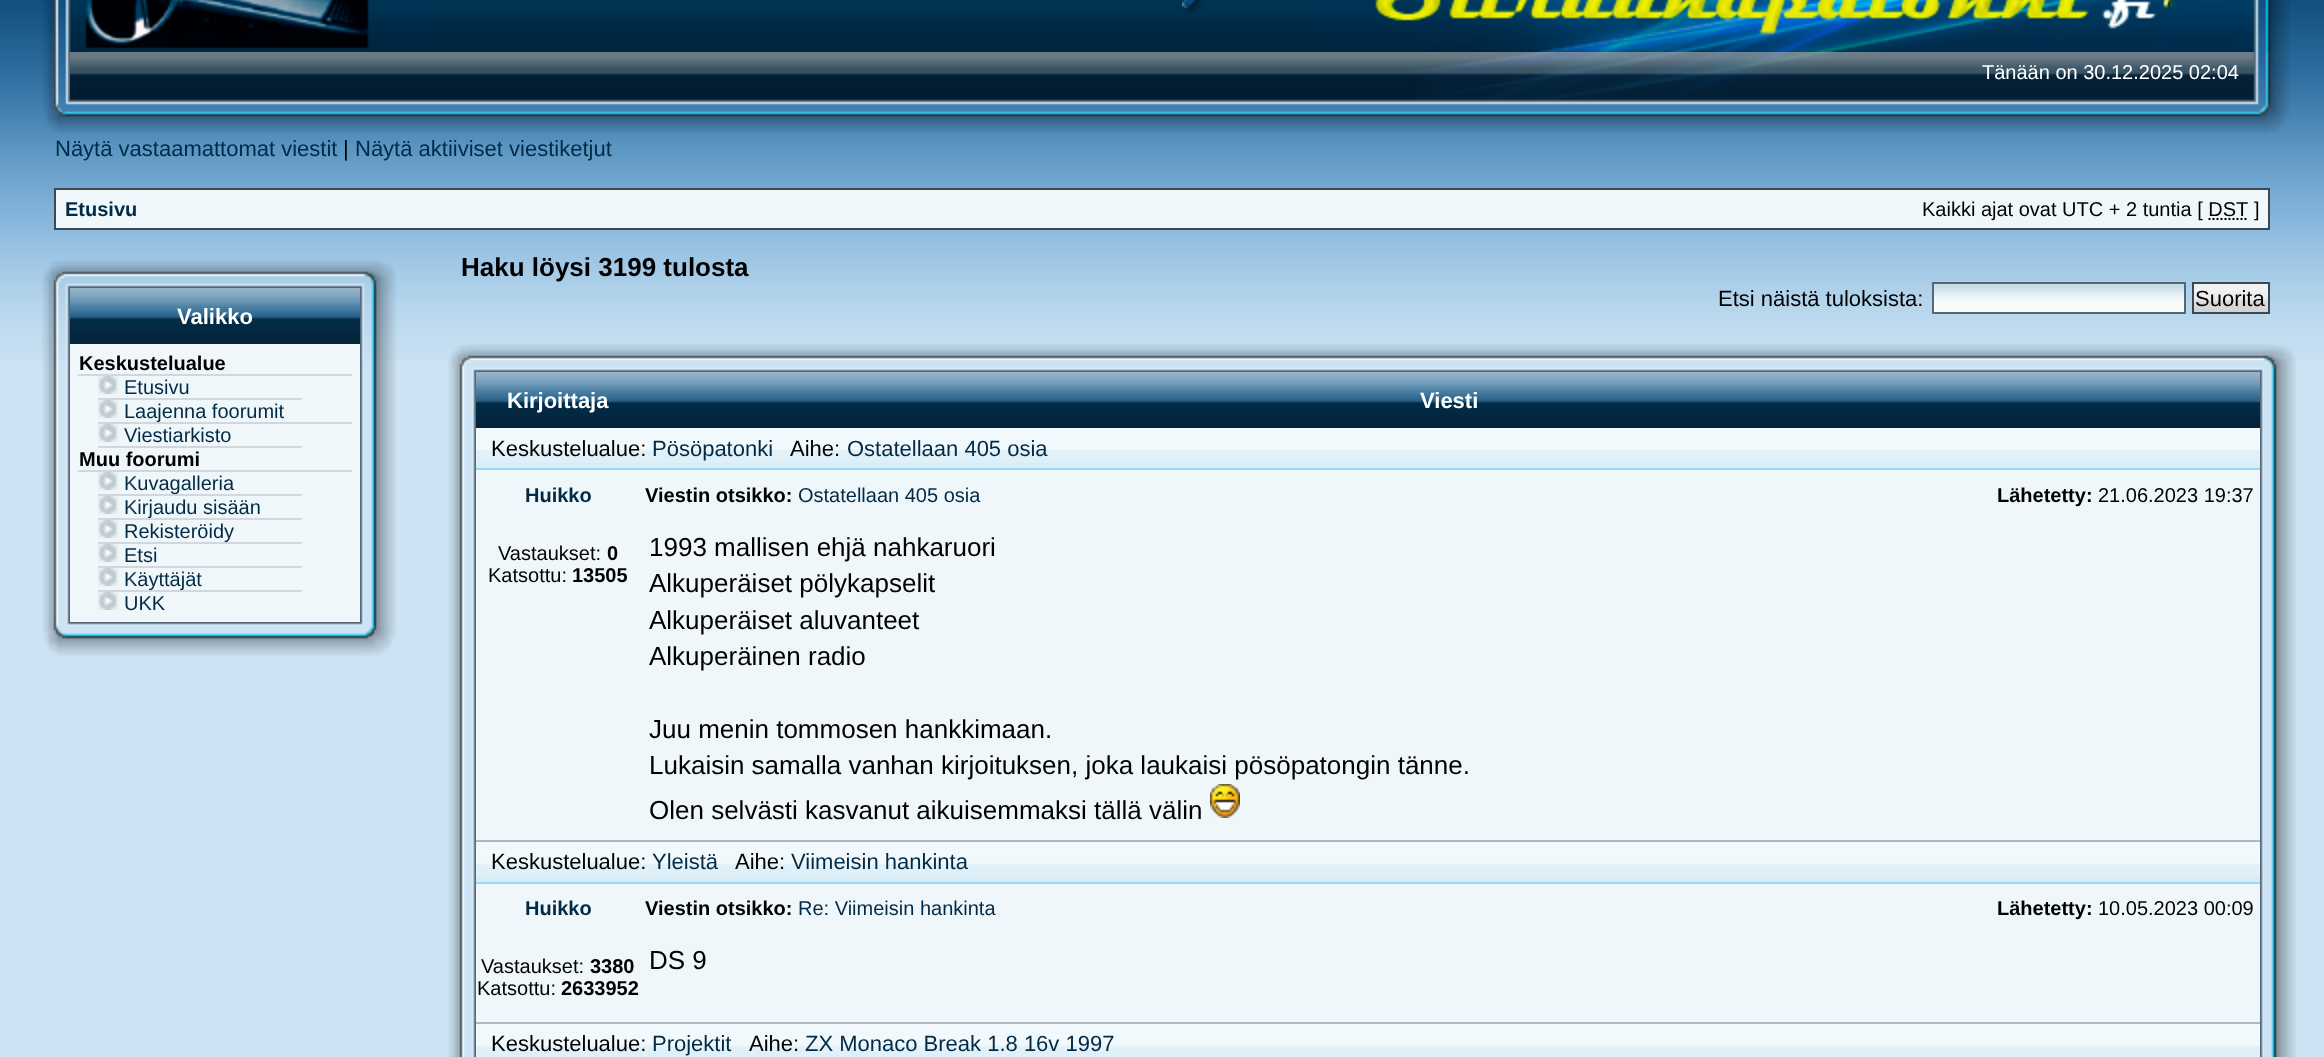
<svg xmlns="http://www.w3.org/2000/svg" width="2324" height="1057">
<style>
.a{font:20px Liberation Sans;fill:#fff}
.b{font:22px Liberation Sans;fill:#002a46}
.c{font:22px Liberation Sans;fill:#000}
.d{font:bold 20px Liberation Sans;fill:#002a46}
.e{font:20px Liberation Sans;fill:#000}
.f{font:bold 22px Liberation Sans;fill:#fff}
.g{font:bold 20px Liberation Sans;fill:#000}
.h{font:20px Liberation Sans;fill:#002a46}
.i{font:bold 26px Liberation Sans;fill:#000}
.j{font:26px Liberation Sans;fill:#000}
</style>
<rect width="100%" height="100%" fill="#cce3f3"/>
<image href="1.png" x="0" y="0" width="2324" height="361"/>
<image href="2.png" x="42" y="0" width="392" height="52"/>
<image href="3.png" x="434" y="0" width="880" height="52"/>
<image href="4.png" x="1182" y="0" width="22" height="14"/>
<image href="5.png" x="1314" y="0" width="976" height="52"/>
<image href="6.png" x="42" y="52" width="28" height="82"/>
<image href="7.png" x="70" y="52" width="1322" height="82"/>
<image href="8.png" x="1392" y="52" width="898" height="82"/>
<path fill="#3a4955" d="M54 188h2216v42H54z"/>
<path fill="#eff7fb" d="M56 190h2212v38H56z"/>
<path fill="none" stroke="#000" stroke-width="2" stroke-dasharray="2 2" d="M2208.5 219h39.5"/>
<image href="9.png" x="42" y="260" width="28" height="28"/>
<image href="10.png" x="70" y="260" width="290" height="28"/>
<image href="11.png" x="360" y="260" width="36" height="28"/>
<image href="12.png" x="42" y="288" width="28" height="334"/>
<image href="13.png" x="70" y="288" width="290" height="56"/>
<path fill="#eff7fb" d="M70 344h290v278H70z"/>
<path fill="#d1d7dc" d="M78 374h274v2H78z"/>
<image href="14.png" x="98" y="376" width="20" height="18"/>
<path fill="#d1d7dc" d="M98 398h204v2H98z"/>
<image href="14.png" x="98" y="400" width="20" height="18"/>
<image href="14.png" x="98" y="424" width="20" height="18"/>
<path fill="#d1d7dc" d="M98 446h204v2H98z"/>
<path fill="#d1d7dc" d="M78 470h274v2H78z"/>
<image href="14.png" x="98" y="472" width="20" height="18"/>
<image href="14.png" x="98" y="496" width="20" height="18"/>
<image href="14.png" x="98" y="520" width="20" height="18"/>
<image href="14.png" x="98" y="544" width="20" height="18"/>
<path fill="#d1d7dc" d="M98 566h204v2H98z"/>
<image href="14.png" x="98" y="568" width="20" height="18"/>
<image href="14.png" x="98" y="592" width="20" height="18"/>
<image href="15.png" x="360" y="288" width="36" height="334"/>
<image href="16.png" x="42" y="622" width="28" height="34"/>
<image href="17.png" x="70" y="622" width="290" height="34"/>
<image href="18.png" x="360" y="622" width="36" height="34"/>
<path fill="#fafafa" d="M1934 300h250v12H1934z"/>
<image href="19.png" x="1934" y="284" width="250" height="16"/>
<path fill="none" stroke="#566877" stroke-width="2" d="M1933 283h252v30H1933z"/>
<image href="20.png" x="2194" y="284" width="74" height="28"/>
<path fill="none" stroke="#3a4955" stroke-width="2" d="M2193 283h76v30H2193z"/>
<image href="21.png" x="448" y="344" width="28" height="28"/>
<image href="22.png" x="476" y="344" width="1784" height="28"/>
<image href="23.png" x="2260" y="344" width="36" height="28"/>
<image href="24.png" x="448" y="372" width="28" height="685"/>
<image href="25.png" x="476" y="372" width="164" height="56"/>
<image href="26.png" x="640" y="372" width="1620" height="56"/>
<path fill="#d8ecf6" d="M476 463h1784v5H476z"/>
<image href="27.png" x="476" y="428" width="1784" height="35"/>
<path fill="#96d9f9" d="M476 468h1784v2H476z"/>
<path fill="#eff7fb" d="M476 470h1784v370H476z"/>
<image href="28.png" x="1210" y="784" width="30" height="34"/>
<path fill="#a7bac5" d="M476 840h1784v2H476z"/>
<path fill="#d8ecf6" d="M476 877h1784v5H476z"/>
<image href="27.png" x="476" y="842" width="1784" height="35"/>
<path fill="#96d9f9" d="M476 882h1784v2H476z"/>
<path fill="#eff7fb" d="M476 884h1784v138H476z"/>
<path fill="#a7bac5" d="M476 1022h1784v2H476z"/>
<image href="29.png" x="476" y="1024" width="1784" height="33"/>
<image href="30.png" x="2260" y="372" width="36" height="685"/>
<text class="a" x="1982" y="79">Tänään on 30.12.2025 02:04</text>
<text class="b" x="55" y="156">Näytä vastaamattomat viestit</text>
<text class="c" x="343" y="156">|</text>
<text class="b" x="355" y="156">Näytä aktiiviset viestiketjut</text>
<text class="d" x="65" y="216">Etusivu</text>
<text class="e" x="1922" y="216">Kaikki ajat ovat UTC + 2 tuntia [ DST</text>
<text class="e" x="2254" y="216">]</text>
<text class="f" x="177" y="324">Valikko</text>
<text class="g" x="79" y="370">Keskustelualue</text>
<text class="h" x="124" y="394">Etusivu</text>
<text class="h" x="124" y="418">Laajenna foorumit</text>
<path fill="#d1d7dc" d="M98 422h254v2H98z"/>
<text class="h" x="124" y="442">Viestiarkisto</text>
<text class="g" x="79" y="466">Muu foorumi</text>
<text class="h" x="124" y="490">Kuvagalleria</text>
<path fill="#d1d7dc" d="M98 494h204v2H98z"/>
<text class="h" x="124" y="514">Kirjaudu sisään</text>
<path fill="#d1d7dc" d="M98 518h204v2H98z"/>
<text class="h" x="124" y="538">Rekisteröidy</text>
<path fill="#d1d7dc" d="M98 542h204v2H98z"/>
<text class="h" x="124" y="562">Etsi</text>
<text class="h" x="124" y="586">Käyttäjät</text>
<path fill="#d1d7dc" d="M98 590h204v2H98z"/>
<text class="h" x="124" y="610">UKK</text>
<text class="i" x="461" y="276">Haku löysi 3199 tulosta</text>
<text class="c" x="1718" y="306">Etsi näistä tuloksista:</text>
<text class="c" x="2195" y="306">Suorita</text>
<text class="f" x="507" y="408">Kirjoittaja</text>
<text class="f" x="1420" y="408">Viesti</text>
<text class="c" x="491" y="456">Keskustelualue:</text>
<text class="b" x="652" y="456">Pösöpatonki</text>
<text class="c" x="790" y="456">Aihe:</text>
<text class="b" x="847" y="456">Ostatellaan 405 osia</text>
<text class="d" x="525" y="502">Huikko</text>
<text class="g" x="645" y="502">Viestin otsikko:</text>
<text class="h" x="798" y="502">Ostatellaan 405 osia</text>
<text class="g" x="1997" y="502">Lähetetty:</text>
<text class="e" x="2098" y="502">21.06.2023 19:37</text>
<text class="e" x="498" y="560">Vastaukset:</text>
<text class="g" x="607" y="560">0</text>
<text class="e" x="488" y="582">Katsottu:</text>
<text class="g" x="572" y="582">13505</text>
<text class="j" x="649" y="556">1993 mallisen ehjä nahkaruori</text>
<text class="j" x="649" y="592">Alkuperäiset pölykapselit</text>
<text class="j" x="649" y="629">Alkuperäiset aluvanteet</text>
<text class="j" x="649" y="665">Alkuperäinen radio</text>
<text class="j" x="649" y="738">Juu menin tommosen hankkimaan.</text>
<text class="j" x="649" y="774">Lukaisin samalla vanhan kirjoituksen, joka laukaisi pösöpatongin tänne.</text>
<text class="j" x="649" y="819">Olen selvästi kasvanut aikuisemmaksi tällä välin</text>
<text class="c" x="491" y="869">Keskustelualue:</text>
<text class="b" x="652" y="869">Yleistä</text>
<text class="c" x="735" y="869">Aihe:</text>
<text class="b" x="791" y="869">Viimeisin hankinta</text>
<text class="d" x="525" y="915">Huikko</text>
<text class="g" x="645" y="915">Viestin otsikko:</text>
<text class="h" x="798" y="915">Re: Viimeisin hankinta</text>
<text class="g" x="1997" y="915">Lähetetty:</text>
<text class="e" x="2098" y="915">10.05.2023 00:09</text>
<text class="e" x="481" y="973">Vastaukset:</text>
<text class="g" x="590" y="973">3380</text>
<text class="e" x="477" y="995">Katsottu:</text>
<text class="g" x="561" y="995">2633952</text>
<text class="j" x="649" y="969">DS 9</text>
<text class="c" x="491" y="1051">Keskustelualue:</text>
<text class="b" x="652" y="1051">Projektit</text>
<text class="c" x="749" y="1051">Aihe:</text>
<text class="b" x="805" y="1051">ZX Monaco Break 1.8 16v 1997</text>
</svg>
